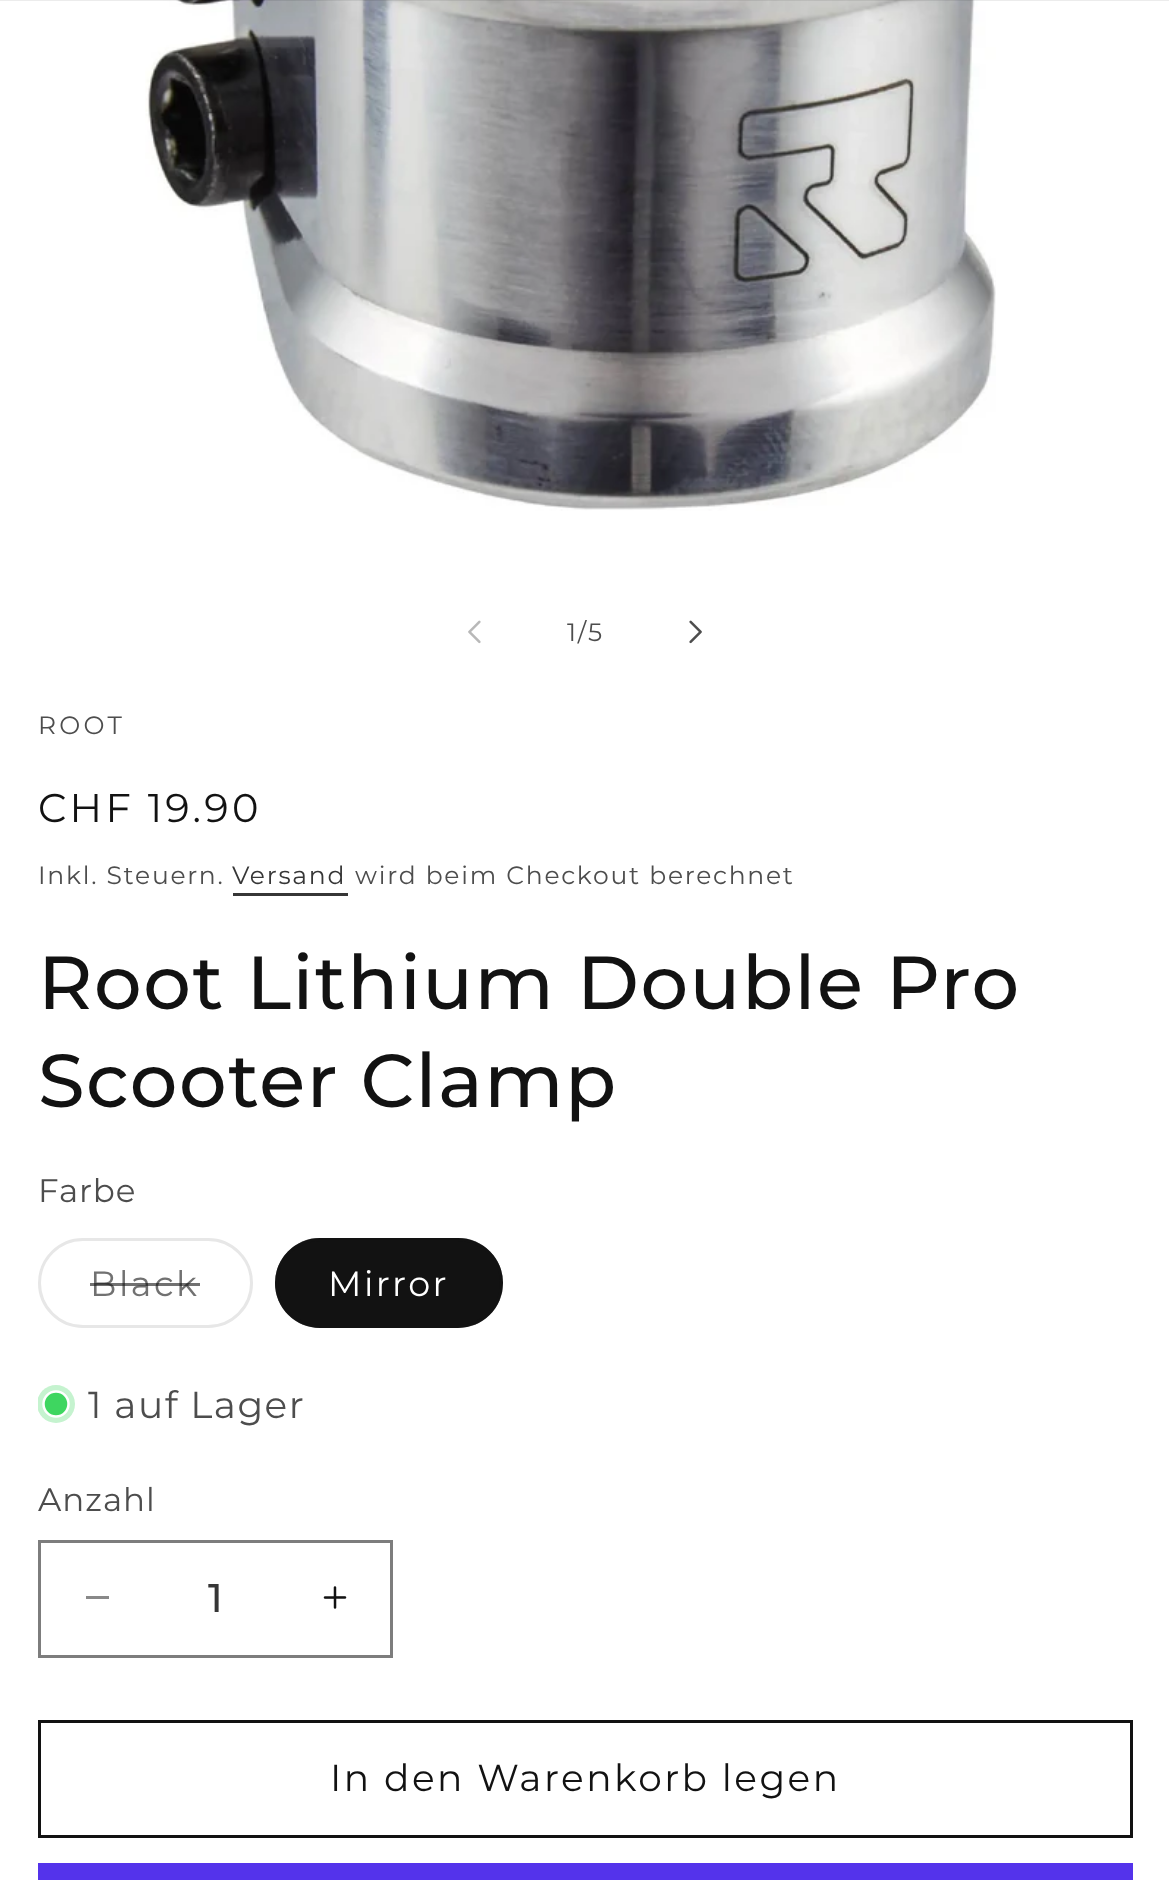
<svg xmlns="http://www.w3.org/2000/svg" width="1169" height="1880">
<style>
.a{font:25px Montserrat;letter-spacing:1.75px;fill:#4d4d4d}
.b{font:25px Montserrat;letter-spacing:3.25px;fill:#4d4d4d}
.c{font:40px Montserrat;letter-spacing:3.25px;fill:#121212}
.d{font:25px Montserrat;letter-spacing:1.75px;fill:#363636}
.e{font:500 75px Montserrat;letter-spacing:1.5px;fill:#121212}
.f{font:32.5px Montserrat;letter-spacing:1px;fill:#4d4d4d}
.g{font:35px Montserrat;letter-spacing:2.5px;fill:#717171}
.h{font:35px Montserrat;letter-spacing:2.5px;fill:#fff}
.i{font:37.5px Montserrat;letter-spacing:1.5px;fill:#4d4d4d}
.j{font:500 40px Montserrat;fill:#363636}
.k{font:37.5px Montserrat;letter-spacing:2.5px;fill:#121212}
</style>
<defs>
<clipPath id="clip1"><path d="M38 1385h37v38H38z"/></clipPath>
</defs>
<rect width="100%" height="100%" fill="#fff"/>
<image href="1.png" x="145" y="0" width="851" height="511"/>
<path fill="#12121214" d="M0 0h1169v1H0z"/>
<image href="2.png" x="468" y="620" width="13" height="24"/>
<image href="3.png" x="689" y="620" width="13" height="24"/>
<path fill="#363636" d="M233 893h115v3H233z"/>
<rect fill="none" stroke="#e7e7e7" stroke-width="3" x="39.5" y="1239.5" width="212" height="87" rx="43.5"/>
<rect fill="#121212" x="275" y="1238" width="228" height="90" rx="45"/>
<rect fill="none" stroke="#1212128c" stroke-width="3" x="276.5" y="1239.5" width="225" height="87" rx="43.5"/>
<g clip-path="url(#clip1)">
<circle fill="#c5f3cf" cx="56" cy="1404" r="19"/>
</g>
<circle fill="#3ed660" stroke="#fff" stroke-width="2.5" cx="56" cy="1404" r="12.5"/>
<path fill="#898989" d="M86 1596h23v3H86z"/>
<image href="4.png" x="323" y="1586" width="24" height="23"/>
<path fill="none" stroke="#7d7d7d" stroke-width="3" d="M39.5 1541.5h352v115H39.5z"/>
<path fill="none" stroke="#121212" stroke-width="3" d="M39.5 1721.5h1092v115H39.5z"/>
<path fill="#5433eb" d="M38 1863h1095v17H38z"/>
<text class="a" x="567" y="641">1/5</text>
<text class="b" x="38" y="734">ROOT</text>
<text class="c" x="38" y="822">CHF 19.90</text>
<text class="a" x="38" y="884">Inkl. Steuern.</text>
<text class="d" x="232" y="884">Versand</text>
<text class="a" x="355" y="884">wird beim Checkout berechnet</text>
<text class="e" x="38" y="1009">Root Lithium Double Pro</text>
<text class="e" x="38" y="1107">Scooter Clamp</text>
<text class="f" x="38" y="1202">Farbe</text>
<text class="g" x="90" y="1296">Black</text>
<path fill="#12121299" d="M90 1283h110v3H90z"/>
<text class="h" x="328" y="1296">Mirror</text>
<text class="i" x="88" y="1418">1 auf Lager</text>
<text class="f" x="38" y="1511">Anzahl</text>
<text class="j" x="208" y="1612">1</text>
<text class="k" x="330" y="1791">In den Warenkorb legen</text>
</svg>
